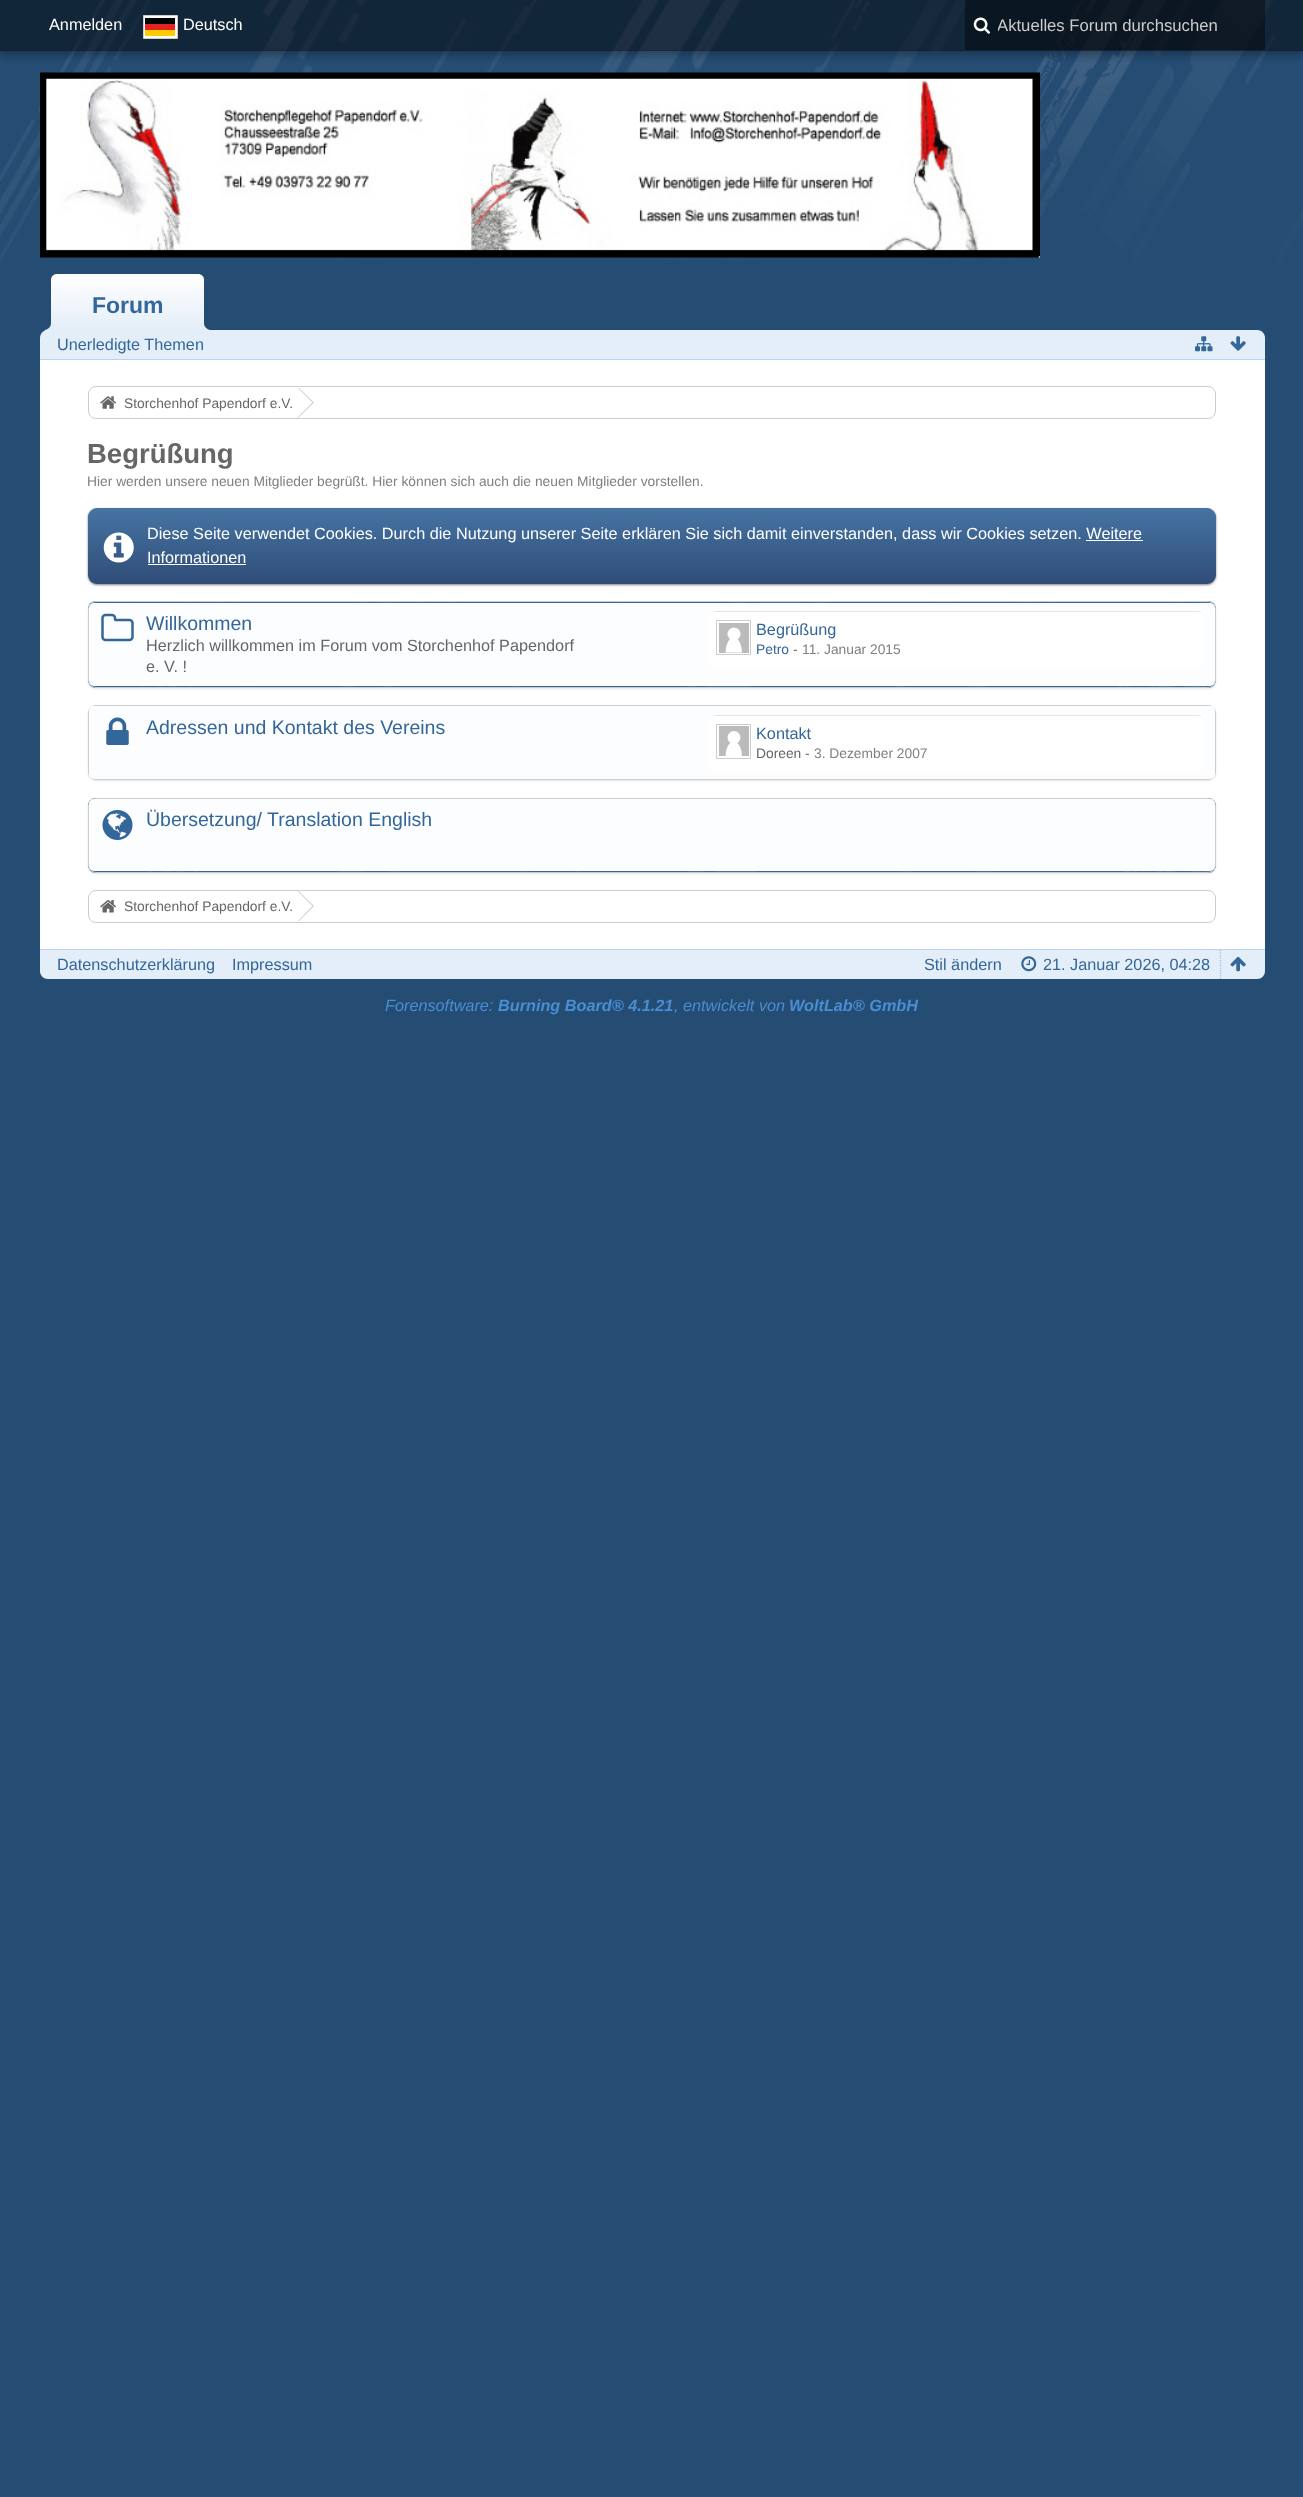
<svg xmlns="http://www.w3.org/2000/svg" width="1303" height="2497">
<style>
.a{font:16.25px Liberation Sans;fill:#fff}
.b{font:16.7px Liberation Sans;fill:#ccc}
.c{font:bold 23px Liberation Sans;fill:#369}
.d{font:16.25px Liberation Sans;fill:#369}
.e{font:13.8px Liberation Sans;fill:#666}
.f{font:bold 27.5px Liberation Sans;fill:#666}
.g{font:13.8px Liberation Sans;fill:#808080}
.h{font:19.5px Liberation Sans;fill:#369}
.i{font:16.25px Liberation Sans;fill:#666}
.j{font:13.8px Liberation Sans;fill:#369}
.k{font:italic 16.25px Liberation Sans;fill:#488ed4}
.l{font:italic bold 16.25px Liberation Sans;fill:#488ed4}
</style>
<defs>
<clipPath id="clip1"><path d="M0 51h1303v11H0z"/></clipPath>
<linearGradient id="g1" gradientUnits="userSpaceOnUse" x1="128" y1="274" x2="128" y2="330"><stop offset="0" stop-color="#fff"/><stop offset="1" stop-color="#e4eef8"/></linearGradient>
<linearGradient id="g2" gradientUnits="userSpaceOnUse" x1="652" y1="507" x2="652" y2="584"><stop offset="0" stop-color="#4674a4"/><stop offset="1" stop-color="#304d77"/></linearGradient>
<clipPath id="clip2"><path d="M998 16h252v19H998z"/></clipPath>
</defs>
<rect width="100%" height="100%" fill="#254c73"/>
<image href="1.png" x="0" y="0" width="1303" height="261"/>
<g clip-path="url(#clip1)">
<path fill="#0000004d" filter="blur(4.5px)" d="M0 4h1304v51H0z"/>
</g>
<path fill="#00000080" d="M0 0h1303v51H0z"/>
<path fill="#0000001a" d="M0 50h1303v1H0z"/>
<path fill="#fff" stroke="#ccc" d="M143.5 15.5h34v23H143.5z"/>
<path fill="#010202" d="M145 18h30v6H145z"/>
<path fill="#e52420" d="M145 24h30v6H145z"/>
<path fill="#ffcc04" d="M145 30h30v6H145z"/>
<path fill="#00000066" d="M965 0h300v50H965z"/>
<image href="2.png" x="973" y="17" width="17" height="17"/>
<image href="3.png" x="40" y="72" width="1000" height="186"/>
<path fill="url(#g1)" d="M57 274h141c3.5 0 6 2.5 6 6v50h-153v-50c0-3.5 2.5-6 6-6z"/>
<path fill="#e4eef8" d="M48 330h1209c4.5 0 8 3.5 8 8v22h-1225v-22c0-4.5 3.5-8 8-8z"/>
<path fill="#e4eef8" d="M45 330v3c5.5 0 9-3.5 9-9h-3c-.5 3-3 5.5-6 6z"/>
<path fill="#e4eef8" d="M201 324c0 5.5 3.5 9 9 9v-3c-3-.5-5.5-3-6-6z"/>
<path fill="#b8d3ed" d="M40 359h1225v1H40z"/>
<image href="4.png" x="1195" y="336" width="18" height="16"/>
<image href="5.png" x="1230" y="336" width="16" height="15"/>
<path fill="#fff" d="M40 360h1225v589H40z"/>
<rect fill="none" stroke="#ccc" x="88.5" y="386.5" width="1127" height="32" rx="7.5"/>
<image href="6.png" x="100" y="396" width="16" height="13"/>
<path fill="#ccc" d="M299 388l15 14.5l-16 15.5h-3v-30z"/>
<path fill="#fff" d="M298 388l14.5 14.5l-15.5 15.5h-3v-30z"/>
<rect fill="#00000080" filter="blur(1px)" x="88" y="509" width="1128" height="76" rx="9"/>
<rect fill="url(#g2)" x="88" y="508" width="1128" height="76" rx="9"/>
<image href="7.png" x="103" y="532" width="31" height="31"/>
<path fill="#fff" d="M1086 540h57v1H1086z"/>
<path fill="#fff" d="M148 564h98v1H148z"/>
<rect fill="#0000001a" filter="blur(1px)" x="88" y="603" width="1128" height="86" rx="8"/>
<rect fill="#369" x="88" y="601" width="1128" height="87" rx="8"/>
<image href="8.png" x="141" y="602" width="1075" height="85"/>
<rect fill="none" stroke="#ccc" x="88.5" y="601.5" width="1127" height="86" rx="7.5"/>
<rect fill="#fcfdfe" x="89" y="603" width="1126" height="83" rx="5"/>
<image href="9.png" x="101" y="613" width="33" height="29"/>
<rect fill="#fff" x="708" y="611" width="497" height="57" rx="8"/>
<path fill="#e5e5e5" d="M715 612h483c4 0 7 4 7 8v-1c0-4-4-8-8-8h-481c-4 0-8 4-8 8v1c0-4 3-8 7-8z"/>
<path fill="none" stroke="#ccc" d="M716.5 620.5h34v34H716.5z"/>
<path fill="#bbb" d="M719 623h30v30H719z"/>
<path fill="#fff" d="M725.5 652.5c1-20 15.5-20 16.5 0"/>
<circle fill="#fff" cx="734" cy="634" r="6.5"/>
<rect fill="#0000001a" filter="blur(1px)" x="88" y="706" width="1128" height="75" rx="8"/>
<image href="10.png" x="1208" y="706" width="8" height="74"/>
<rect fill="none" stroke="#ccc" x="88.5" y="705.5" width="1127" height="74" rx="7.5"/>
<rect fill="#fcfdfe" x="89" y="706" width="1126" height="73" rx="5"/>
<image href="11.png" x="106" y="717" width="23" height="28"/>
<rect fill="#fff" x="708" y="715" width="497" height="56" rx="8"/>
<path fill="#e5e5e5" d="M715 716h483c4 0 7 4 7 8v-1c0-4-4-8-8-8h-481c-4 0-8 4-8 8v1c0-4 3-8 7-8z"/>
<path fill="none" stroke="#ccc" d="M716.5 724.5h34v34H716.5z"/>
<path fill="#bbb" d="M719 726h30v30H719z"/>
<path fill="#fff" d="M725.5 756c1-19.5 15.5-19.5 16.5 0"/>
<circle fill="#fff" cx="734" cy="737.5" r="6.5"/>
<rect fill="#0000001a" filter="blur(1px)" x="88" y="799" width="1128" height="75" rx="8"/>
<rect fill="#369" x="88" y="798" width="1128" height="75" rx="8"/>
<image href="12.png" x="147" y="798" width="1069" height="75"/>
<rect fill="none" stroke="#ccc" x="88.5" y="798.5" width="1127" height="74" rx="7.5"/>
<rect fill="#fcfdfe" x="89" y="799" width="1126" height="72" rx="5"/>
<image href="13.png" x="102" y="810" width="31" height="30"/>
<rect fill="none" stroke="#ccc" x="88.5" y="890.5" width="1127" height="32" rx="7.5"/>
<image href="14.png" x="100" y="900" width="16" height="13"/>
<path fill="#ccc" d="M298.5 891l15.5 15l-15 15h-4v-30z"/>
<path fill="#fff" d="M297.5 891l15 15l-14.5 15h-4v-30z"/>
<path fill="#e4eef8" d="M40 949h1225v22c0 4.5-3.5 8-8 8h-1209c-4.5 0-8-3.5-8-8z"/>
<path fill="#b8d3ed" d="M40 949h1225v1H40z"/>
<path fill="none" stroke="#93bde3" stroke-width="1.2" stroke-dasharray="1.25 1.25" d="M1220.5 950v29"/>
<image href="15.png" x="1021" y="956" width="16" height="16"/>
<image href="16.png" x="1230" y="956" width="16" height="16"/>
<text class="a" x="49" y="30">Anmelden</text>
<text class="a" x="183" y="30">Deutsch</text>
<g clip-path="url(#clip2)">
<text class="b" x="997" y="31">Aktuelles Forum durchsuchen</text>
</g>
<text class="c" x="92" y="313">Forum</text>
<text class="d" x="57" y="350">Unerledigte Themen</text>
<text class="e" x="124" y="408">Storchenhof Papendorf e.V.</text>
<text class="f" x="87" y="463">Begrüßung</text>
<text class="g" x="87" y="486">Hier werden unsere neuen Mitglieder begrüßt. Hier können sich auch die neuen Mitglieder vorstellen.</text>
<text class="a" x="147" y="539">Diese Seite verwendet Cookies. Durch die Nutzung unserer Seite erklären Sie sich damit einverstanden, dass wir Cookies setzen. Weitere</text>
<text class="a" x="147" y="563">Informationen</text>
<text class="h" x="146" y="630">Willkommen</text>
<text class="i" x="146" y="651">Herzlich willkommen im Forum vom Storchenhof Papendorf</text>
<text class="i" x="146" y="672">e. V. !</text>
<text class="d" x="756" y="635">Begrüßung</text>
<text class="j" x="756" y="654">Petro</text>
<text class="e" x="793" y="654">-</text>
<text class="g" x="802" y="654">11. Januar 2015</text>
<text class="h" x="146" y="734">Adressen und Kontakt des Vereins</text>
<text class="d" x="756" y="739">Kontakt</text>
<text class="e" x="756" y="758">Doreen -</text>
<text class="g" x="814" y="758">3. Dezember 2007</text>
<text class="h" x="146" y="826">Übersetzung/ Translation English</text>
<text class="e" x="124" y="911">Storchenhof Papendorf e.V.</text>
<text class="d" x="57" y="970">Datenschutzerklärung</text>
<text class="d" x="232" y="970">Impressum</text>
<text class="d" x="924" y="970">Stil ändern</text>
<text class="d" x="1043" y="970">21. Januar 2026, 04:28</text>
<text class="k" x="385" y="1011">Forensoftware:</text>
<text class="l" x="498" y="1011">Burning Board® 4.1.21</text>
<text class="k" x="674" y="1011">, entwickelt von</text>
<text class="l" x="789" y="1011">WoltLab® GmbH</text>
</svg>
